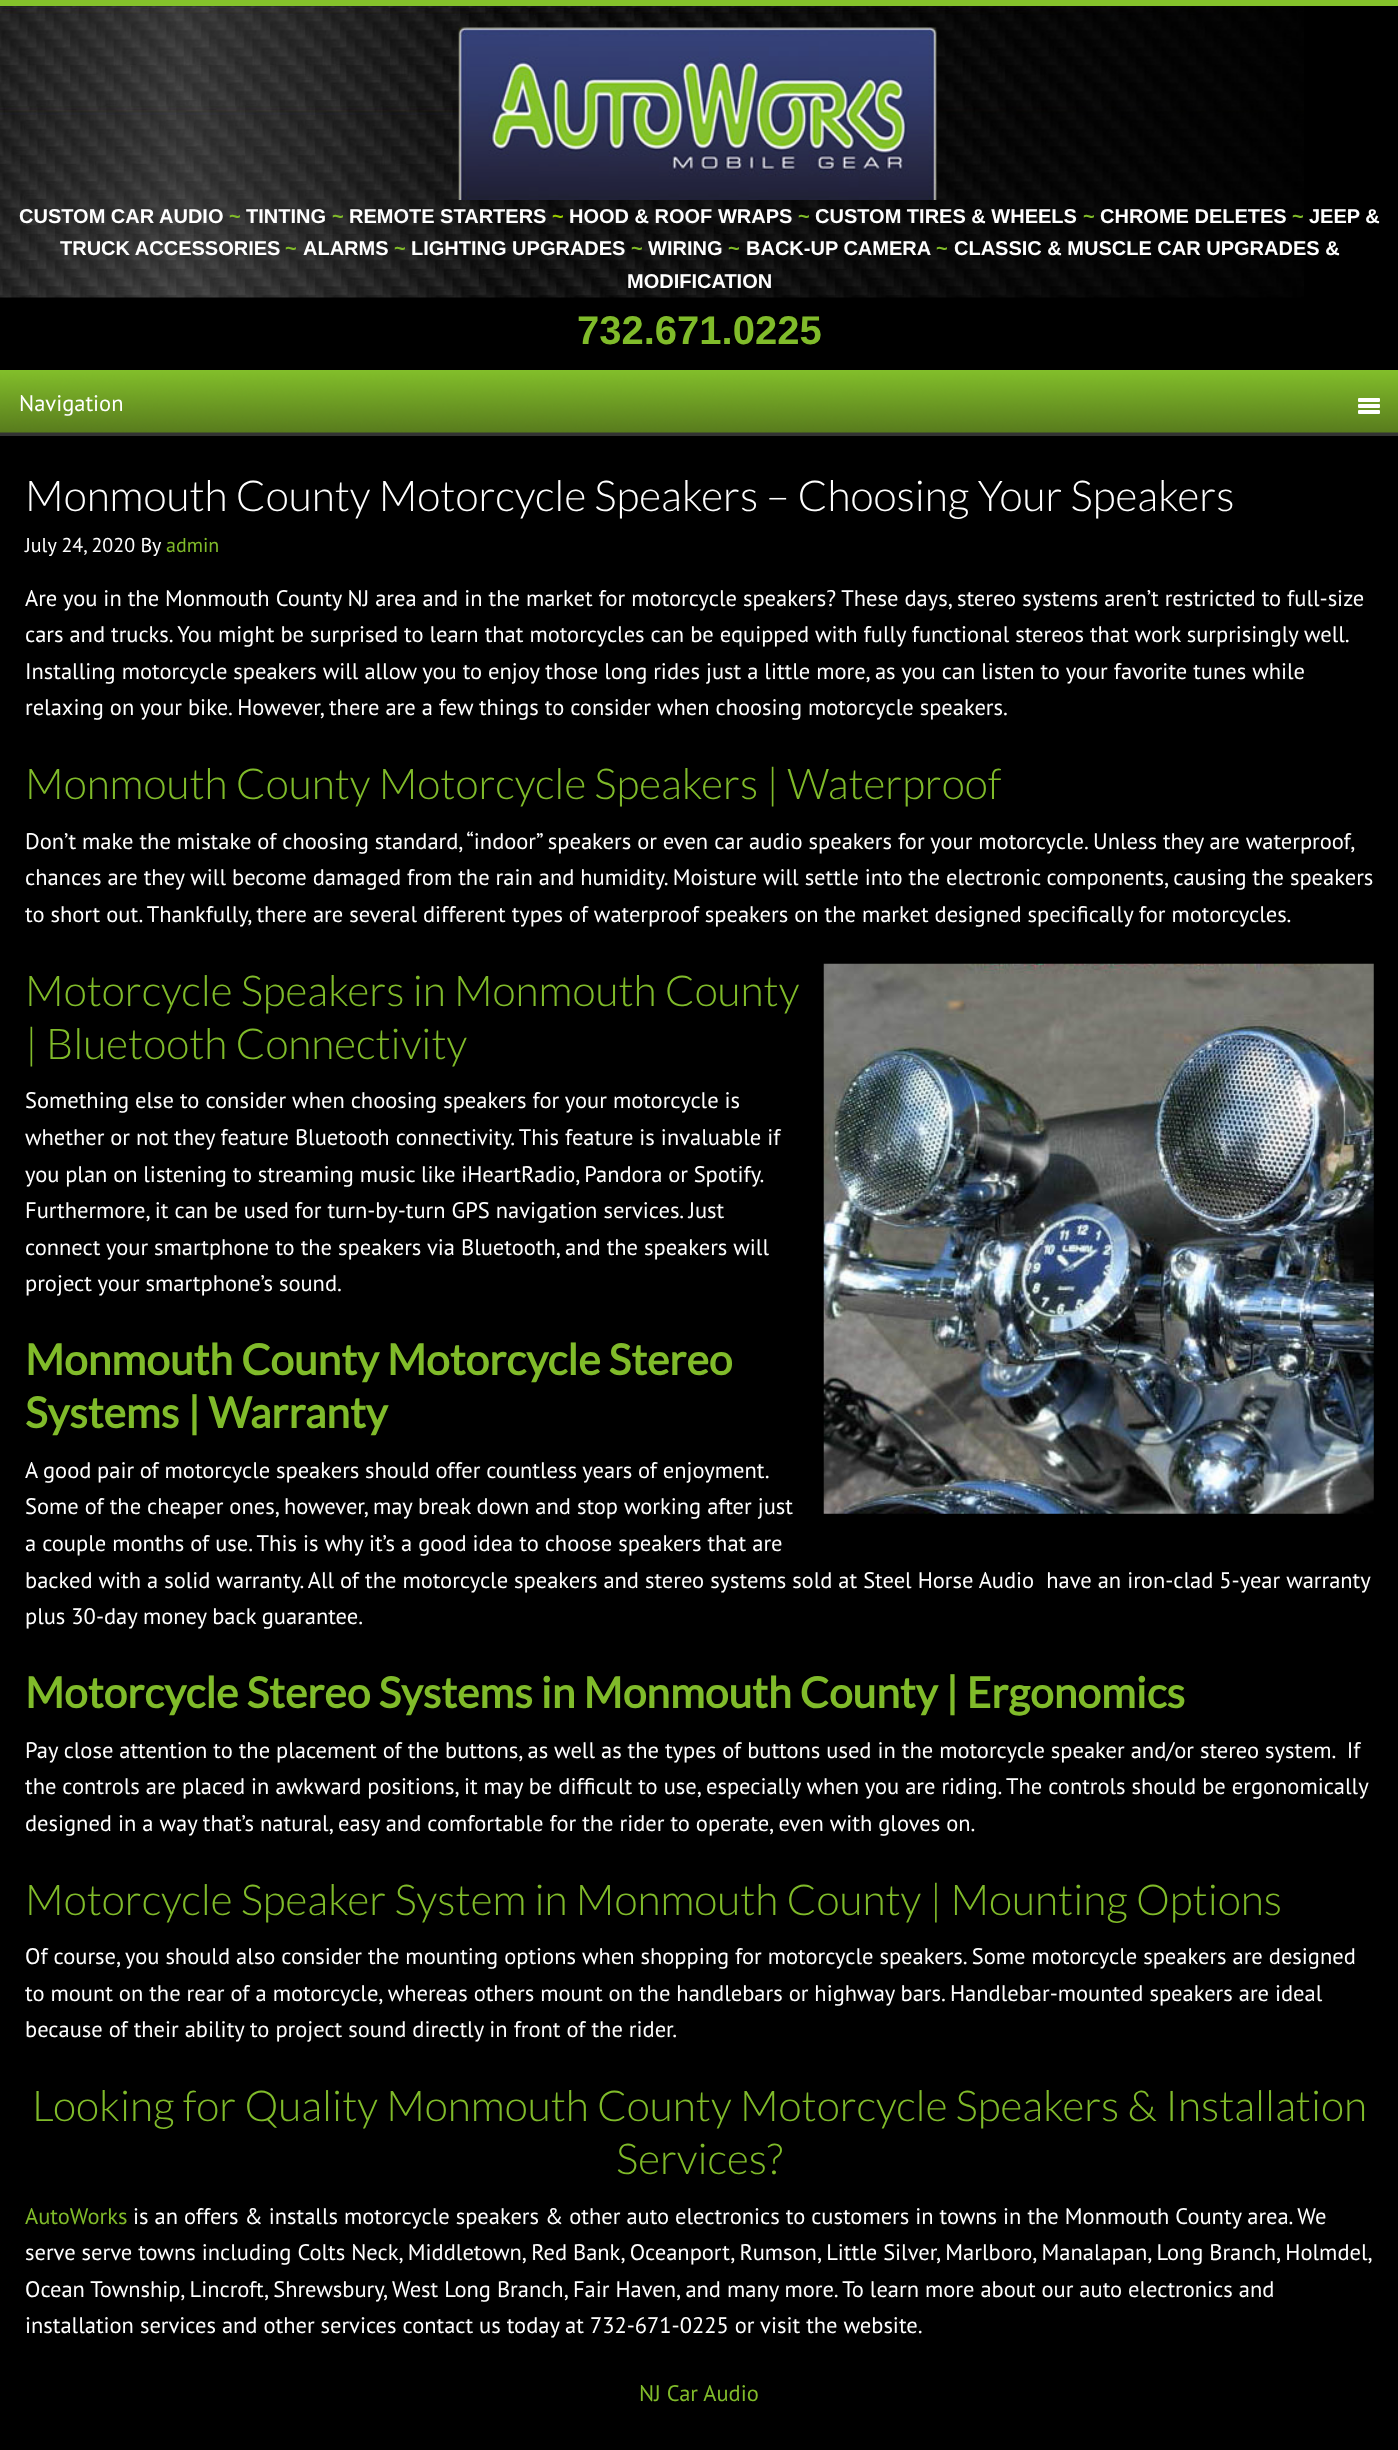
<svg xmlns="http://www.w3.org/2000/svg" width="1398" height="2450">
<style>
.a{font:bold 20px Liberation Sans;fill:#fff}
.b{font:bold 20px Liberation Sans;fill:#80bb2a}
.c{font:bold 20px Liberation Sans;fill:#9c0}
.d{font:bold 40px Liberation Sans;fill:#80bb2a}
.e{font:22.5px PT Sans;fill:#fff}
.f{font:300 42.5px Lato;fill:#fff}
.g{font:20px PT Sans;fill:#fff}
.h{font:20px PT Sans;fill:#80bb2a}
.i{font:300 42.5px Lato;fill:#80bb2a}
.j{font:bold 42.5px Lato;fill:#80bb2a}
.k{font:22.5px PT Sans;fill:#80bb2a}
</style>
<rect width="100%" height="100%" fill="#000"/>
<image href="1.png" x="0" y="6" width="1304" height="292"/>
<path fill="#84c22b" d="M0 0h1398v6H0z"/>
<image href="2.png" x="458" y="27" width="479" height="173"/>
<path fill="#333" d="M0 432h1398v4H0z"/>
<image href="3.png" x="0" y="370" width="1398" height="63"/>
<rect fill="#fff" x="1358" y="398" width="22" height="4" rx="1"/>
<rect fill="#fff" x="1358" y="404" width="22" height="4" rx="1"/>
<rect fill="#fff" x="1358" y="410" width="22" height="4" rx="1"/>
<image href="4.png" x="823" y="963" width="551" height="551"/>
<text class="a" x="19" y="223">CUSTOM CAR AUDIO</text>
<text class="b" x="229" y="223">~</text>
<text class="a" x="246" y="223">TINTING</text>
<text class="b" x="332" y="223">~</text>
<text class="a" x="349" y="223">REMOTE STARTERS</text>
<text class="c" x="552" y="223">~</text>
<text class="a" x="569" y="223">HOOD &amp; ROOF WRAPS</text>
<text class="b" x="798" y="223">~</text>
<text class="a" x="815" y="223">CUSTOM TIRES &amp; WHEELS</text>
<text class="b" x="1083" y="223">~</text>
<text class="a" x="1100" y="223">CHROME DELETES</text>
<text class="b" x="1292" y="223">~</text>
<text class="a" x="1309" y="223">JEEP &amp;</text>
<text class="a" x="60" y="255">TRUCK ACCESSORIES</text>
<text class="b" x="285" y="255">~</text>
<text class="a" x="303" y="255">ALARMS</text>
<text class="b" x="394" y="255">~</text>
<text class="a" x="411" y="255">LIGHTING UPGRADES</text>
<text class="b" x="631" y="255">~</text>
<text class="a" x="648" y="255">WIRING</text>
<text class="b" x="728" y="255">~</text>
<text class="a" x="746" y="255">BACK-UP CAMERA</text>
<text class="b" x="936" y="255">~</text>
<text class="a" x="954" y="255">CLASSIC &amp; MUSCLE CAR UPGRADES &amp;</text>
<text class="a" x="627" y="288">MODIFICATION</text>
<text class="d" x="577" y="344">732.671.0225</text>
<text class="e" x="19" y="411">Navigation</text>
<text class="f" x="25" y="511">Monmouth County Motorcycle Speakers – Choosing Your Speakers</text>
<text class="g" x="25" y="552">July 24, 2020 By</text>
<text class="h" x="166" y="552">admin</text>
<text class="e" x="25" y="606">Are you in the Monmouth County NJ area and in the market for motorcycle speakers? These days, stereo systems aren’t restricted to full-size</text>
<text class="e" x="25" y="642">cars and trucks. You might be surprised to learn that motorcycles can be equipped with fully functional stereos that work surprisingly well.</text>
<text class="e" x="25" y="679">Installing motorcycle speakers will allow you to enjoy those long rides just a little more, as you can listen to your favorite tunes while</text>
<text class="e" x="25" y="715">relaxing on your bike. However, there are a few things to consider when choosing motorcycle speakers.</text>
<text class="i" x="25" y="799">Monmouth County Motorcycle Speakers | Waterproof</text>
<text class="e" x="25" y="849">Don’t make the mistake of choosing standard, “indoor” speakers or even car audio speakers for your motorcycle. Unless they are waterproof,</text>
<text class="e" x="25" y="885">chances are they will become damaged from the rain and humidity. Moisture will settle into the electronic components, causing the speakers</text>
<text class="e" x="25" y="922">to short out. Thankfully, there are several different types of waterproof speakers on the market designed specifically for motorcycles.</text>
<text class="i" x="25" y="1006">Motorcycle Speakers in Monmouth County</text>
<text class="i" x="25" y="1059">| Bluetooth Connectivity</text>
<text class="e" x="25" y="1108">Something else to consider when choosing speakers for your motorcycle is</text>
<text class="e" x="25" y="1145">whether or not they feature Bluetooth connectivity. This feature is invaluable if</text>
<text class="e" x="25" y="1182" word-spacing="-0.25">you plan on listening to streaming music like iHeartRadio, Pandora or Spotify.</text>
<text class="e" x="25" y="1218">Furthermore, it can be used for turn-by-turn GPS navigation services. Just</text>
<text class="e" x="25" y="1255">connect your smartphone to the speakers via Bluetooth, and the speakers will</text>
<text class="e" x="25" y="1291">project your smartphone’s sound.</text>
<text class="j" x="25" y="1375">Monmouth County Motorcycle Stereo</text>
<text class="j" x="25" y="1428">Systems | Warranty</text>
<text class="e" x="25" y="1478" word-spacing="-0.25">A good pair of motorcycle speakers should offer countless years of enjoyment.</text>
<text class="e" x="25" y="1514">Some of the cheaper ones, however, may break down and stop working after just</text>
<text class="e" x="25" y="1551">a couple months of use. This is why it’s a good idea to choose speakers that are</text>
<text class="e" xml:space="preserve" x="25" y="1588">backed with a solid warranty. All of the motorcycle speakers and stereo systems sold at Steel Horse Audio  have an iron-clad 5-year warranty</text>
<text class="e" x="25" y="1624">plus 30-day money back guarantee.</text>
<text class="j" x="25" y="1708">Motorcycle Stereo Systems in Monmouth County | Ergonomics</text>
<text class="e" xml:space="preserve" x="25" y="1758">Pay close attention to the placement of the buttons, as well as the types of buttons used in the motorcycle speaker and/or stereo system.  If</text>
<text class="e" x="25" y="1794">the controls are placed in awkward positions, it may be difficult to use, especially when you are riding. The controls should be ergonomically</text>
<text class="e" x="25" y="1831">designed in a way that’s natural, easy and comfortable for the rider to operate, even with gloves on.</text>
<text class="i" x="25" y="1915">Motorcycle Speaker System in Monmouth County | Mounting Options</text>
<text class="e" x="25" y="1964">Of course, you should also consider the mounting options when shopping for motorcycle speakers. Some motorcycle speakers are designed</text>
<text class="e" x="25" y="2001">to mount on the rear of a motorcycle, whereas others mount on the handlebars or highway bars. Handlebar-mounted speakers are ideal</text>
<text class="e" x="25" y="2037">because of their ability to project sound directly in front of the rider.</text>
<text class="i" x="32" y="2121">Looking for Quality Monmouth County Motorcycle Speakers &amp; Installation</text>
<text class="i" x="616" y="2174">Services?</text>
<text class="k" x="25" y="2224">AutoWorks</text>
<text class="e" x="133" y="2224">is an offers &amp; installs motorcycle speakers &amp; other auto electronics to customers in towns in the Monmouth County area. We</text>
<text class="e" x="25" y="2260">serve serve towns including Colts Neck, Middletown, Red Bank, Oceanport, Rumson, Little Silver, Marlboro, Manalapan, Long Branch, Holmdel,</text>
<text class="e" x="25" y="2297">Ocean Township, Lincroft, Shrewsbury, West Long Branch, Fair Haven, and many more. To learn more about our auto electronics and</text>
<text class="e" x="25" y="2333">installation services and other services contact us today at 732-671-0225 or visit the website.</text>
<text class="k" x="639" y="2401">NJ Car Audio</text>
</svg>
